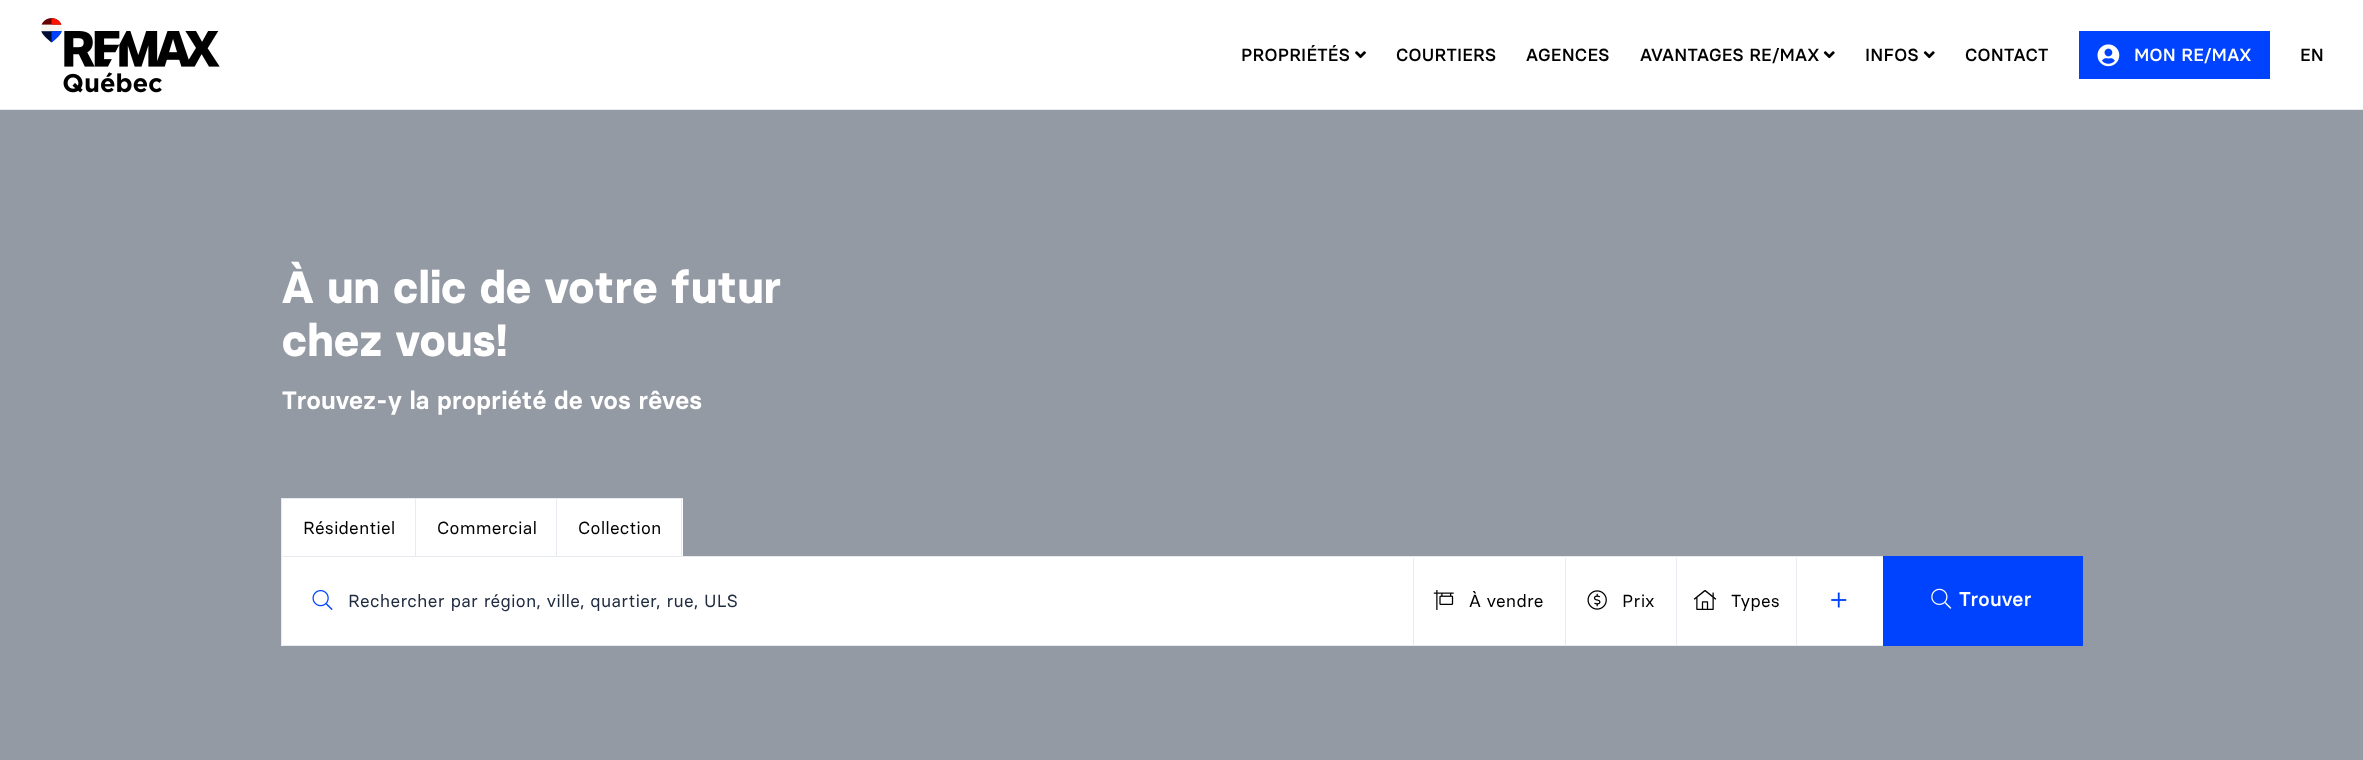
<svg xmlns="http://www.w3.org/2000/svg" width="2363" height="760">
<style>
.a{font:500 17.5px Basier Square;letter-spacing:0.2px;fill:#000}
.b{font:500 17.5px Basier Square;letter-spacing:0.2px;fill:#fff}
.c{font:bold 45px Basier Square;letter-spacing:0.45px;fill:#fff}
.d{font:600 25px Basier Square;letter-spacing:0.25px;fill:#fff}
.e{font:17.5px Basier Square;letter-spacing:0.2px;fill:#000}
.f{font:17.5px Basier Square;letter-spacing:0.3px;fill:#202c40}
.g{font:17.5px Basier Square;letter-spacing:0.25px;fill:#000}
.h{font:500 20px Basier Square;letter-spacing:0.25px;fill:#fff}
</style>
<rect width="100%" height="100%" fill="#949aa3"/>
<path fill="#fff" d="M0 0h2363v109H0z"/>
<path fill="#e7eaee" d="M0 109h2363v1H0z"/>
<image href="1.png" x="41" y="18" width="179" height="75"/>
<image href="2.png" x="1355" y="51" width="11" height="8"/>
<image href="3.png" x="1823" y="51" width="12" height="8"/>
<image href="3.png" x="1923" y="51" width="12" height="8"/>
<path fill="#0043ff" d="M2079 31h191v48H2079z"/>
<image href="4.png" x="2097" y="44" width="23" height="23"/>
<path fill="#fff" d="M282 499h401v57H282z"/>
<path fill="#e7eaee" d="M281 498h402v1H281z"/>
<path fill="#e7eaee" d="M281 498h1v58H281z"/>
<path fill="#e7eaee" d="M415 498h1v58H415z"/>
<path fill="#e7eaee" d="M681 498h1v58H681z"/>
<path fill="#e7eaee" d="M556 498h1v58H556z"/>
<path fill="#fff" d="M282 557h1601v89H282z"/>
<path fill="#e7eaee" d="M281 556h1602v1H281z"/>
<path fill="#e7eaee" d="M281 556h1v90H281z"/>
<path fill="#e7eaee" d="M283 645h1600v1H283z"/>
<image href="5.png" x="312" y="590" width="21" height="20"/>
<path fill="#e7eaee" d="M1413 558h1v88H1413z"/>
<image href="6.png" x="1433" y="590" width="21" height="20"/>
<path fill="#e7eaee" d="M1565 558h1v88H1565z"/>
<image href="7.png" x="1587" y="590" width="20" height="20"/>
<path fill="#e7eaee" d="M1676 558h1v88H1676z"/>
<image href="8.png" x="1693" y="590" width="24" height="20"/>
<path fill="#e7eaee" d="M1796 558h1v88H1796z"/>
<image href="9.png" x="1831" y="592" width="16" height="16"/>
<path fill="#0043ff" d="M1883 556h200v90H1883z"/>
<image href="10.png" x="1931" y="588" width="21" height="21"/>
<text class="a" x="1241" y="61">PROPRIÉTÉS</text>
<text class="a" x="1396" y="61">COURTIERS</text>
<text class="a" x="1526" y="61">AGENCES</text>
<text class="a" x="1640" y="61">AVANTAGES RE/MAX</text>
<text class="a" x="1865" y="61">INFOS</text>
<text class="a" x="1965" y="61">CONTACT</text>
<text class="b" x="2134" y="61">MON RE/MAX</text>
<text class="a" x="2300" y="61">EN</text>
<text class="c" x="282" y="303">À un clic de votre futur</text>
<text class="c" x="282" y="356">chez vous!</text>
<text class="d" x="282" y="409">Trouvez-y la propriété de vos rêves</text>
<text class="e" x="303" y="534">Résidentiel</text>
<text class="e" x="437" y="534">Commercial</text>
<text class="e" x="578" y="534">Collection</text>
<text class="f" x="348" y="607">Rechercher par région, ville, quartier, rue, ULS</text>
<text class="g" x="1469" y="607">À vendre</text>
<text class="g" x="1622" y="607">Prix</text>
<text class="g" x="1731" y="607">Types</text>
<text class="h" x="1959" y="606">Trouver</text>
</svg>
